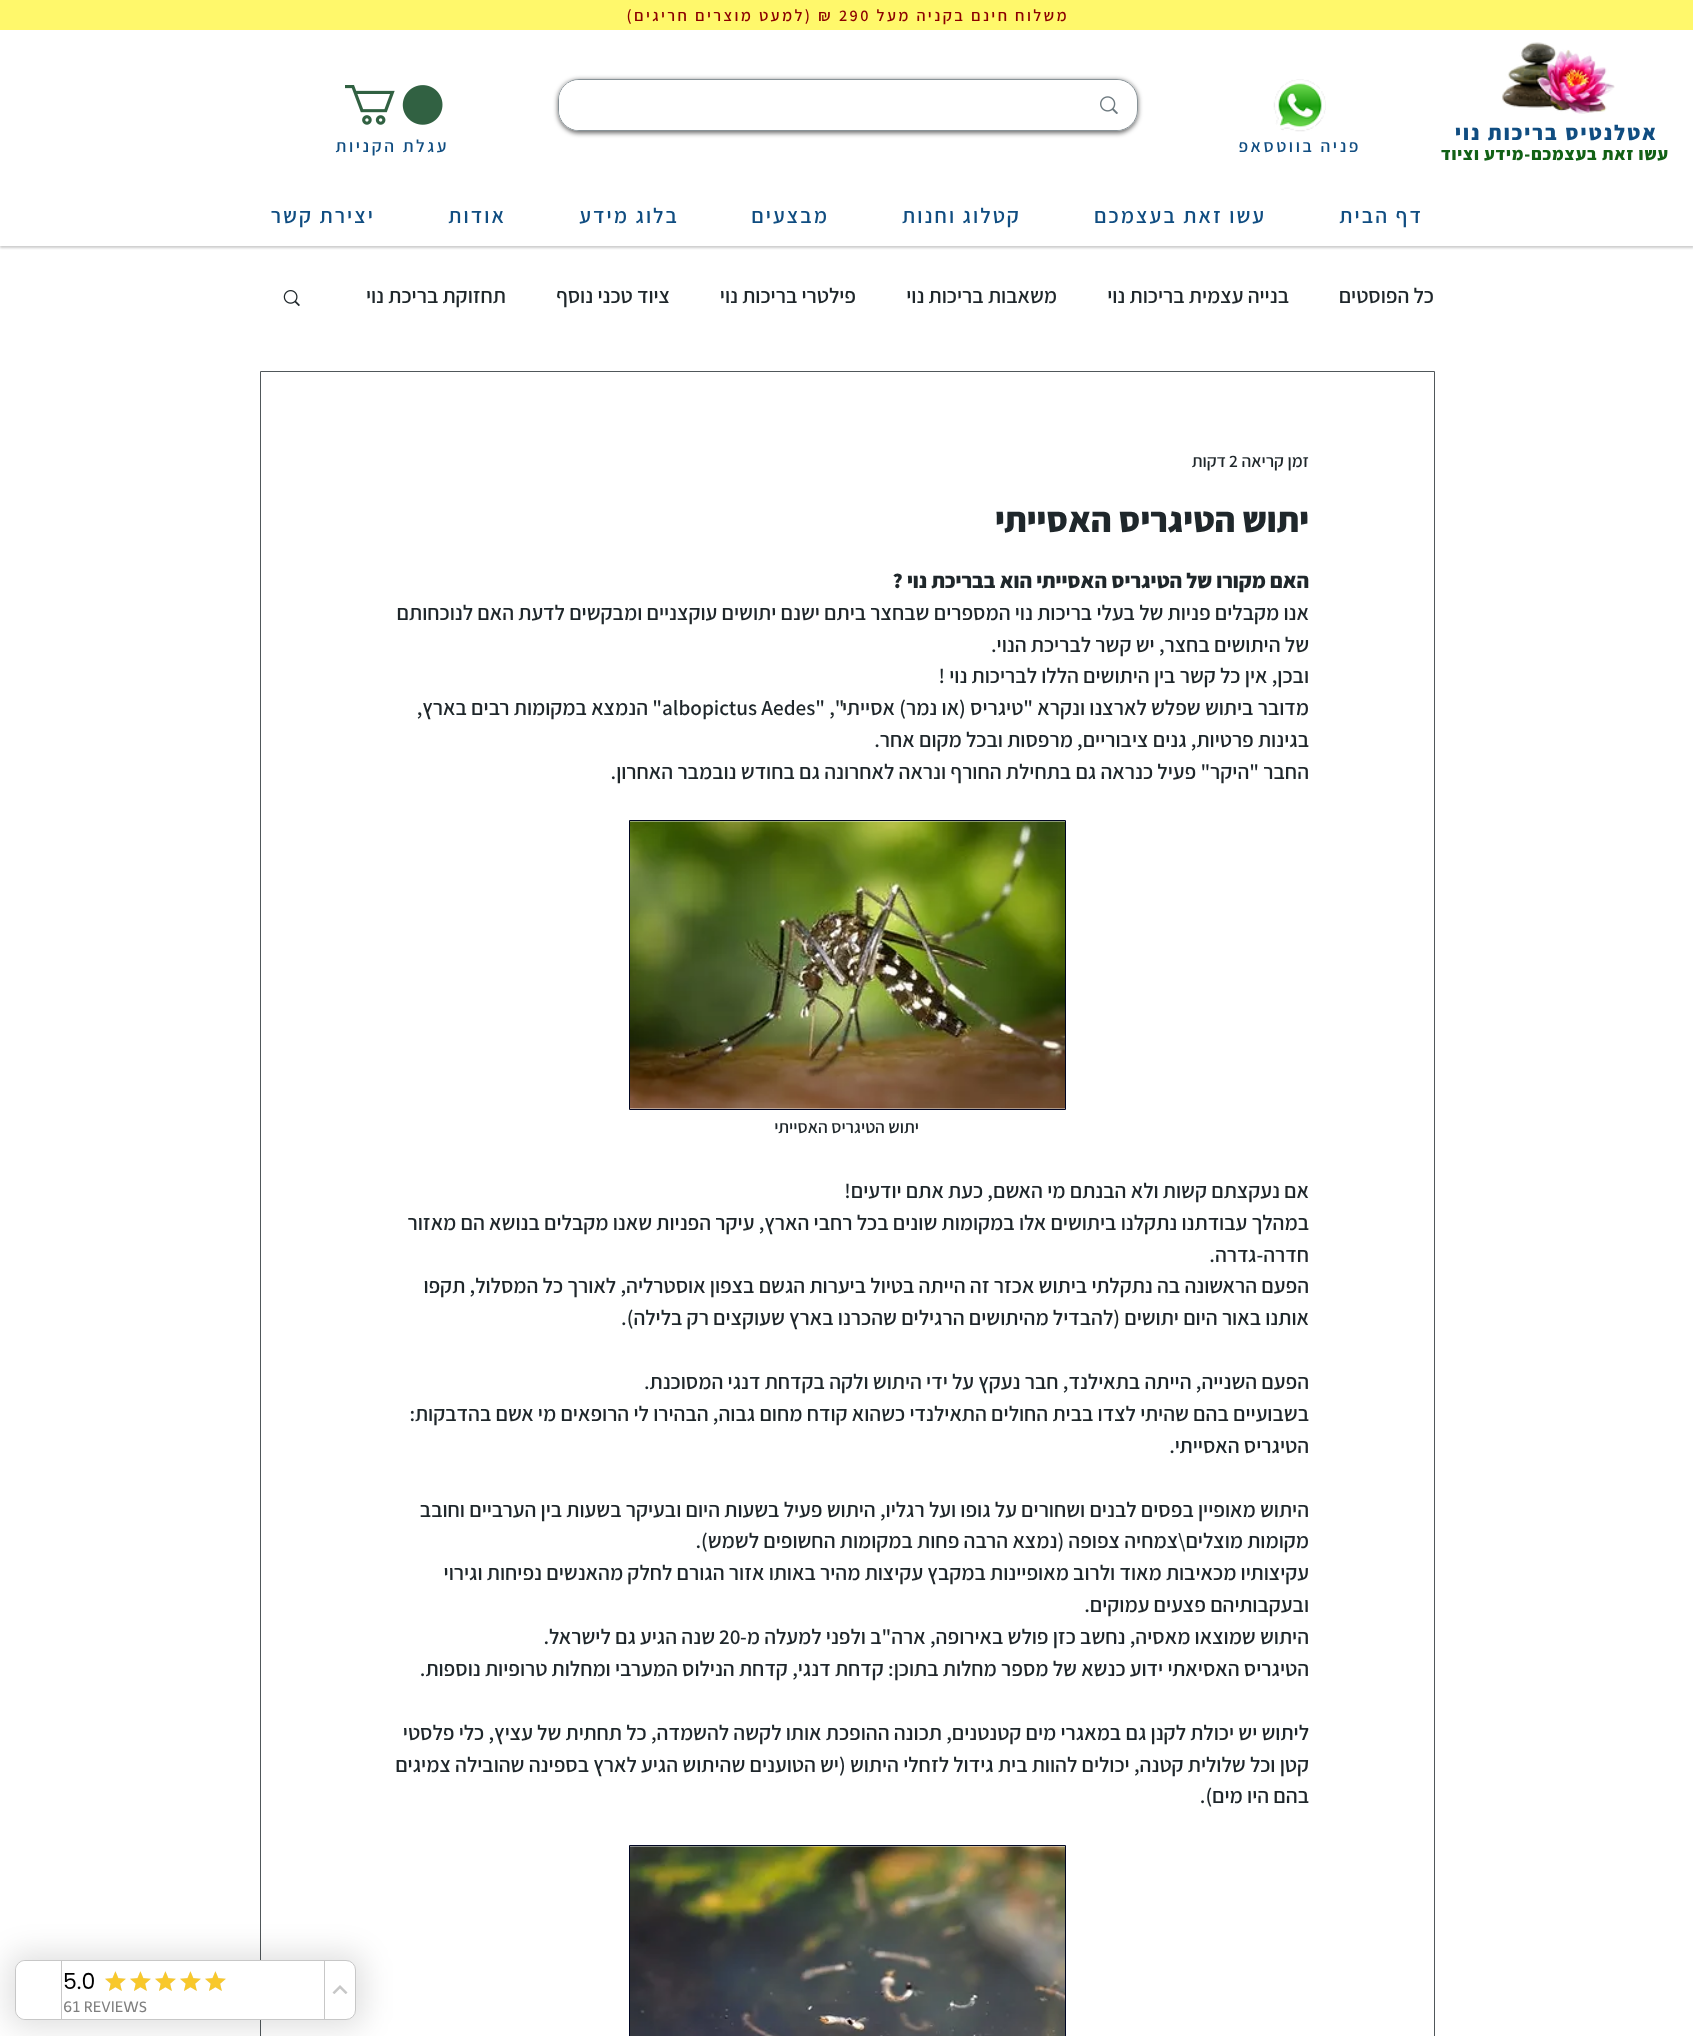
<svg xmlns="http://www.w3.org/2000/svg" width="1693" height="2036">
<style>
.a{font:600 16.25px Assistant;letter-spacing:2.4px;direction:rtl;fill:#8b0000}
.b{font:600 16.25px Assistant;letter-spacing:2.4px;fill:#8b0000}
.c{font:800 21.25px Assistant;letter-spacing:2.1px;direction:rtl;fill:#104d81}
.d{font:600 17.5px Assistant;letter-spacing:2.6px;direction:rtl;fill:#104d81}
.e{font:800 17.5px Assistant;letter-spacing:0.9px;direction:rtl;fill:#116115}
.f{font:600 21.25px Assistant;letter-spacing:2.1px;direction:rtl;fill:#104d81}
.g{font:600 21.25px Assistant;direction:rtl;fill:#1f272b}
.h{font:600 17.5px Assistant;direction:rtl;fill:#1f272b}
.i{font:600 17.5px Assistant;fill:#1f272b}
.j{font:800 35px Assistant;direction:rtl;fill:#1f272b}
.k{font:800 21.25px Assistant;direction:rtl;fill:#1f272b}
.l{font:600 21.25px Assistant;fill:#1f272b}
.m{font:22px Poppins;fill:#000}
.n{font:15px Telex;fill:#7f7f7f}
</style>
<defs>
<clipPath id="clip1"><path d="M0 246h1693v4H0z"/></clipPath>
<clipPath id="clip2"><path d="M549 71h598v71h-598zm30 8h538c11.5 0 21 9.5 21 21v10c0 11.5-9.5 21-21 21h-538c-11.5 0-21-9.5-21-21v-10c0-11.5 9.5-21 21-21z" clip-rule="evenodd"/></clipPath>
</defs>
<rect width="100%" height="100%" fill="#fff"/>
<g clip-path="url(#clip1)">
<path fill="#7272725c" filter="blur(1px)" d="M0 1h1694v247H0z"/>
</g>
<path fill="#fff86b" d="M0 0h1693v30H0z"/>
<image href="1.png" x="1501" y="42" width="114" height="72"/>
<image href="2.png" x="1273" y="79" width="53" height="53"/>
<g clip-path="url(#clip2)">
<rect fill="#00000099" filter="blur(2.5px)" x="558" y="80" width="580" height="53" rx="21"/>
</g>
<rect fill="none" stroke="#6e7a80d1" x="558.5" y="79.5" width="579" height="51" rx="20.5"/>
<rect fill="#fff" x="559" y="80" width="577" height="50" rx="20"/>
<image href="3.png" x="1100" y="96" width="18" height="18"/>
<image href="4.png" x="345" y="85" width="98" height="40"/>
<image href="5.png" x="283" y="290" width="17" height="17"/>
<path fill="none" stroke="#50575a" d="M260.5 371.5h1174v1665H260.5z"/>
<path fill="none" stroke="#000624" d="M629.5 820.5h436v289H629.5z"/>
<image href="6.png" x="630" y="821" width="435" height="288"/>
<path fill="none" stroke="#000624" d="M629.5 1845.5h436v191H629.5z"/>
<image href="7.png" x="630" y="1846" width="435" height="190"/>
<rect fill="#0000001f" filter="blur(15px)" x="8" y="1953" width="356" height="75" rx="15"/>
<rect fill="#fff" stroke="#c7c7c7" x="15.5" y="1960.5" width="340" height="59" rx="9.5"/>
<image href="8.png" x="332" y="1985" width="16" height="9"/>
<path fill="#c7c7c7" d="M324 1961h1v58H324z"/>
<image href="9.png" x="205" y="1971" width="21" height="20"/>
<image href="10.png" x="205" y="1971" width="21" height="20"/>
<image href="9.png" x="180" y="1971" width="21" height="20"/>
<image href="10.png" x="180" y="1971" width="21" height="20"/>
<image href="9.png" x="155" y="1971" width="21" height="20"/>
<image href="10.png" x="155" y="1971" width="21" height="20"/>
<image href="9.png" x="130" y="1971" width="21" height="20"/>
<image href="10.png" x="130" y="1971" width="21" height="20"/>
<image href="9.png" x="105" y="1971" width="21" height="20"/>
<image href="10.png" x="105" y="1971" width="21" height="20"/>
<path fill="#fff" d="M26 1961h37v58h-37c-5.5 0-10-4.5-10-10v-38c0-5.5 4.5-10 10-10z"/>
<path fill="#c7c7c7" d="M61 1961h1v58H61z"/>
<text class="a" x="1069" y="21">משלוח חינם בקניה מעל</text>
<text class="b" x="839" y="21">290</text>
<text class="a" x="833" y="21">₪ (למעט מוצרים חריגים)</text>
<text class="c" x="1658" y="140">אטלנטיס בריכות נוי</text>
<text class="d" x="1361" y="152">פניה בווטסאפ</text>
<text class="d" x="449" y="152">עגלת הקניות</text>
<text class="e" x="1669" y="160">עשו זאת בעצמכם-מידע וציוד</text>
<text class="f" x="1423" y="223">דף הבית</text>
<text class="f" x="1266" y="223">עשו זאת בעצמכם</text>
<text class="f" x="1021" y="223">קטלוג וחנות</text>
<text class="f" x="829" y="223">מבצעים</text>
<text class="f" x="679" y="223">בלוג מידע</text>
<text class="f" x="506" y="223">אודות</text>
<text class="f" x="375" y="223">יצירת קשר</text>
<text class="g" x="1434" y="303">כל הפוסטים</text>
<text class="g" x="1289" y="303">בנייה עצמית בריכות נוי</text>
<text class="g" x="1057" y="303">משאבות בריכות נוי</text>
<text class="g" x="856" y="303">פילטרי בריכות נוי</text>
<text class="g" x="670" y="303">ציוד טכני נוסף</text>
<text class="g" x="506" y="303">תחזוקת בריכת נוי</text>
<text class="h" x="1309" y="467">זמן קריאה</text>
<text class="i" x="1229" y="467">2</text>
<text class="h" x="1226" y="467">דקות</text>
<text class="j" x="1309" y="532">יתוש הטיגריס האסייתי</text>
<text class="k" x="1309" y="588">האם מקורו של הטיגריס האסייתי הוא בבריכת נוי ?</text>
<text class="g" x="1309" y="620">אנו מקבלים פניות של בעלי בריכות נוי המספרים שבחצר ביתם ישנם יתושים עוקצניים ומבקשים לדעת האם לנוכחותם</text>
<text class="g" x="1309" y="652">של היתושים בחצר, יש קשר לבריכת הנוי.</text>
<text class="g" x="1309" y="683">ובכן, אין כל קשר בין היתושים הללו לבריכות נוי !</text>
<text class="g" x="1309" y="715">מדובר ביתוש שפלש לארצנו ונקרא "טיגריס (או נמר) אסייתי", "</text>
<text class="l" x="662" y="715">albopictus Aedes</text>
<text class="g" x="662" y="715">" הנמצא במקומות רבים בארץ,</text>
<text class="g" x="1309" y="747">בגינות פרטיות, גנים ציבוריים, מרפסות ובכל מקום אחר.</text>
<text class="g" x="1309" y="779">החבר "היקר" פעיל כנראה גם בתחילת החורף ונראה לאחרונה גם בחודש נובמבר האחרון.</text>
<text class="h" x="919" y="1133">יתוש הטיגריס האסייתי</text>
<text class="g" x="1309" y="1198">אם נעקצתם קשות ולא הבנתם מי האשם, כעת אתם יודעים!</text>
<text class="g" x="1309" y="1230">במהלך עבודתנו נתקלנו ביתושים אלו במקומות שונים בכל רחבי הארץ, עיקר הפניות שאנו מקבלים בנושא הם מאזור</text>
<text class="g" x="1309" y="1262">חדרה-גדרה.</text>
<text class="g" x="1309" y="1293">הפעם הראשונה בה נתקלתי ביתוש אכזר זה הייתה בטיול ביערות הגשם בצפון אוסטרליה, לאורך כל המסלול, תקפו</text>
<text class="g" x="1309" y="1325">אותנו באור היום יתושים (להבדיל מהיתושים הרגילים שהכרנו בארץ שעוקצים רק בלילה).</text>
<text class="g" x="1309" y="1389">הפעם השנייה, הייתה בתאילנד, חבר נעקץ על ידי היתוש ולקה בקדחת דנגי המסוכנת.</text>
<text class="g" x="1309" y="1421">בשבועיים בהם שהיתי לצדו בבית החולים התאילנדי כשהוא קודח מחום גבוה, הבהירו לי הרופאים מי אשם בהדבקות:</text>
<text class="g" x="1309" y="1453">הטיגריס האסייתי.</text>
<text class="g" x="1309" y="1517">היתוש מאופיין בפסים לבנים ושחורים על גופו ועל רגליו, היתוש פעיל בשעות היום ובעיקר בשעות בין הערביים וחובב</text>
<text class="g" x="1309" y="1548">מקומות מוצלים\צמחיה צפופה (נמצא הרבה פחות במקומות החשופים לשמש).</text>
<text class="g" x="1309" y="1580">עקיצותיו מכאיבות מאוד ולרוב מאופיינות במקבץ עקיצות מהיר באותו אזור הגורם לחלק מהאנשים נפיחות וגירוי</text>
<text class="g" x="1309" y="1612">ובעקבותיהם פצעים עמוקים.</text>
<text class="g" x="1309" y="1644">היתוש שמוצאו מאסיה, נחשב כזן פולש באירופה, ארה"ב ולפני למעלה מ-</text>
<text class="l" x="719" y="1644">20</text>
<text class="g" x="715" y="1644">שנה הגיע גם לישראל.</text>
<text class="g" x="1309" y="1676">הטיגריס האסיאתי ידוע כנשא של מספר מחלות בתוכן: קדחת דנגי, קדחת הנילוס המערבי ומחלות טרופיות נוספות.</text>
<text class="g" x="1309" y="1740">ליתוש יש יכולת לקנן גם במאגרי מים קטנטנים, תכונה ההופכת אותו לקשה להשמדה, כל תחתית של עציץ, כלי פלסטי</text>
<text class="g" x="1309" y="1772">קטן וכל שלולית קטנה, יכולים להוות בית גידול לזחלי היתוש (יש הטוענים שהיתוש הגיע לארץ בספינה שהובילה צמיגים</text>
<text class="g" x="1309" y="1803">בהם היו מים).</text>
<text class="m" x="63" y="1989">5.0</text>
<text class="n" x="63" y="2012">61 REVIEWS</text>
</svg>
